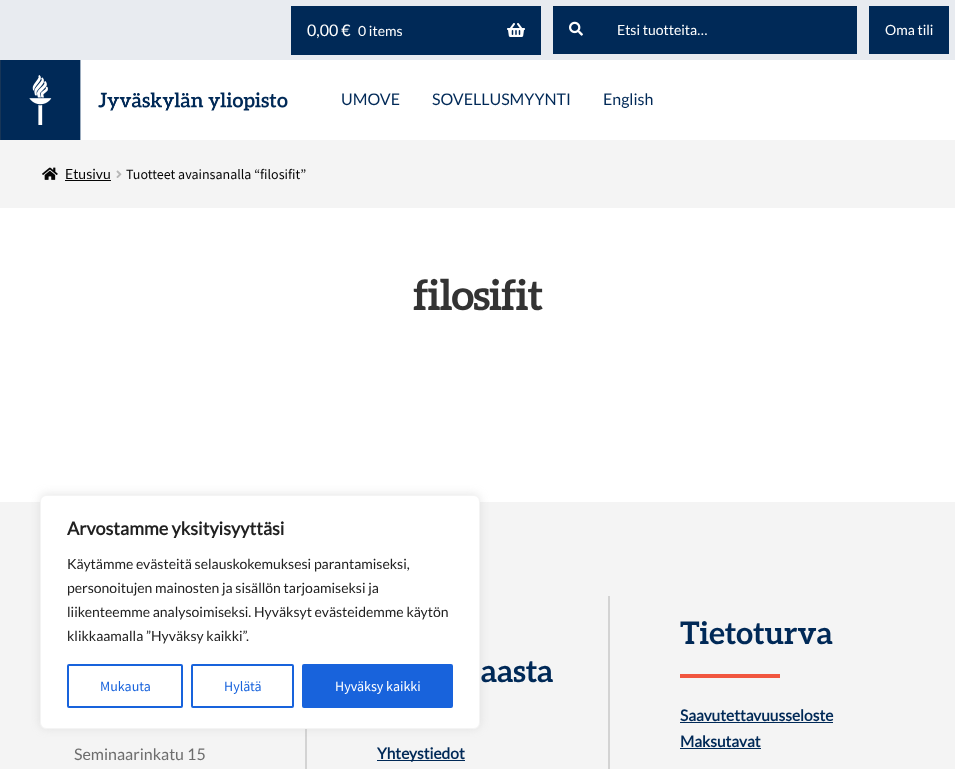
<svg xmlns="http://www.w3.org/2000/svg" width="955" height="769">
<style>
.a{font:16px Lato;fill:#fff}
.b{font:14px Lato;fill:#fff}
.c{font:16px Lato;fill:#002957}
.d{font:14px Lato;fill:#050505}
.e{font:14px Source Sans Pro;fill:#050505}
.f{font:bold 42px Aleo;letter-spacing:-1px;fill:#333}
.g{font:16px Lato;fill:#6d6d6d}
.h{font:bold 31px Aleo;fill:#002957}
.i{font:bold 15.5px Lato;fill:#002957}
.j{font:bold 18px Lato;fill:#212121}
.k{font:14px Lato;fill:#212121}
.l{font:14px Source Sans Pro;fill:#1863dc}
.m{font:14px Source Sans Pro;fill:#fff}
</style>
<rect width="100%" height="100%" fill="#fff"/>
<path fill="#e8ebf0" d="M0 0h955v60H0z"/>
<path fill="#002957" d="M291 6h250v49H291z"/>
<image href="1.png" x="507" y="23" width="18" height="14"/>
<path fill="#002957" d="M553 7h304v47H553z"/>
<image href="2.png" x="569" y="21" width="14" height="15"/>
<path fill="#00244c" d="M553 6h304v1H553z"/>
<path fill="#002957" d="M869 6h80v48H869z"/>
<image href="3.png" x="0" y="60" width="288" height="80"/>
<path fill="#f4f4f4" d="M0 140h955v68H0z"/>
<image href="4.png" x="42" y="167" width="16" height="13"/>
<path fill="#050505" d="M65 180h46v1H65z"/>
<image href="5.png" x="116" y="170" width="6" height="8"/>
<path fill="#f4f4f4" d="M0 502h955v267H0z"/>
<path fill="#d3d3d3" d="M305 729h2v40H305z"/>
<path fill="#d3d3d3" d="M608 596h2v173H608z"/>
<path fill="#002957" d="M377 760h88v1H377z"/>
<path fill="#f1563f" d="M680 674h100v4H680z"/>
<path fill="#002957" d="M680 722h153v1H680z"/>
<path fill="#002957" d="M680 748h81v1H680z"/>
<rect fill="#acabab4d" filter="blur(5px)" x="40" y="494" width="440" height="234" rx="6"/>
<rect fill="#fff" stroke="#f4f4f4" x="40.5" y="495.5" width="439" height="233" rx="5.5"/>
<rect fill="none" stroke="#1863dc" stroke-width="2" x="68" y="665" width="114" height="42" rx="1"/>
<rect fill="none" stroke="#1863dc" stroke-width="2" x="192" y="665" width="101" height="42" rx="1"/>
<rect fill="#1863dc" stroke="#1863dc" stroke-width="2" x="303" y="665" width="149" height="42" rx="1"/>
<text class="a" x="307" y="36">0,00 €</text>
<text class="b" x="358" y="36">0 items</text>
<text class="b" x="617" y="35">Etsi tuotteita…</text>
<text class="b" x="885" y="35">Oma tili</text>
<text class="c" x="341" y="105">UMOVE</text>
<text class="c" x="432" y="105">SOVELLUSMYYNTI</text>
<text class="c" x="603" y="105">English</text>
<text class="d" x="65" y="179">Etusivu</text>
<text class="e" x="126" y="179">Tuotteet avainsanalla “filosifit”</text>
<text class="f" x="413" y="310">filosifit</text>
<text class="g" x="74" y="760">Seminaarinkatu 15</text>
<text class="h" x="481" y="682">aasta</text>
<text class="i" x="377" y="759">Yhteystiedot</text>
<text class="h" x="680" y="644">Tietoturva</text>
<text class="i" x="680" y="721">Saavutettavuusseloste</text>
<text class="i" x="680" y="747">Maksutavat</text>
<text class="j" x="67" y="535">Arvostamme yksityisyyttäsi</text>
<text class="k" x="67" y="569">Käytämme evästeitä selauskokemuksesi parantamiseksi,</text>
<text class="k" x="67" y="593">personoitujen mainosten ja sisällön tarjoamiseksi ja</text>
<text class="k" x="67" y="617">liikenteemme analysoimiseksi. Hyväksyt evästeidemme käytön</text>
<text class="k" x="67" y="641">klikkaamalla ”Hyväksy kaikki”.</text>
<text class="l" x="100" y="691">Mukauta</text>
<text class="l" x="224" y="691">Hylätä</text>
<text class="m" x="335" y="691">Hyväksy kaikki</text>
</svg>
